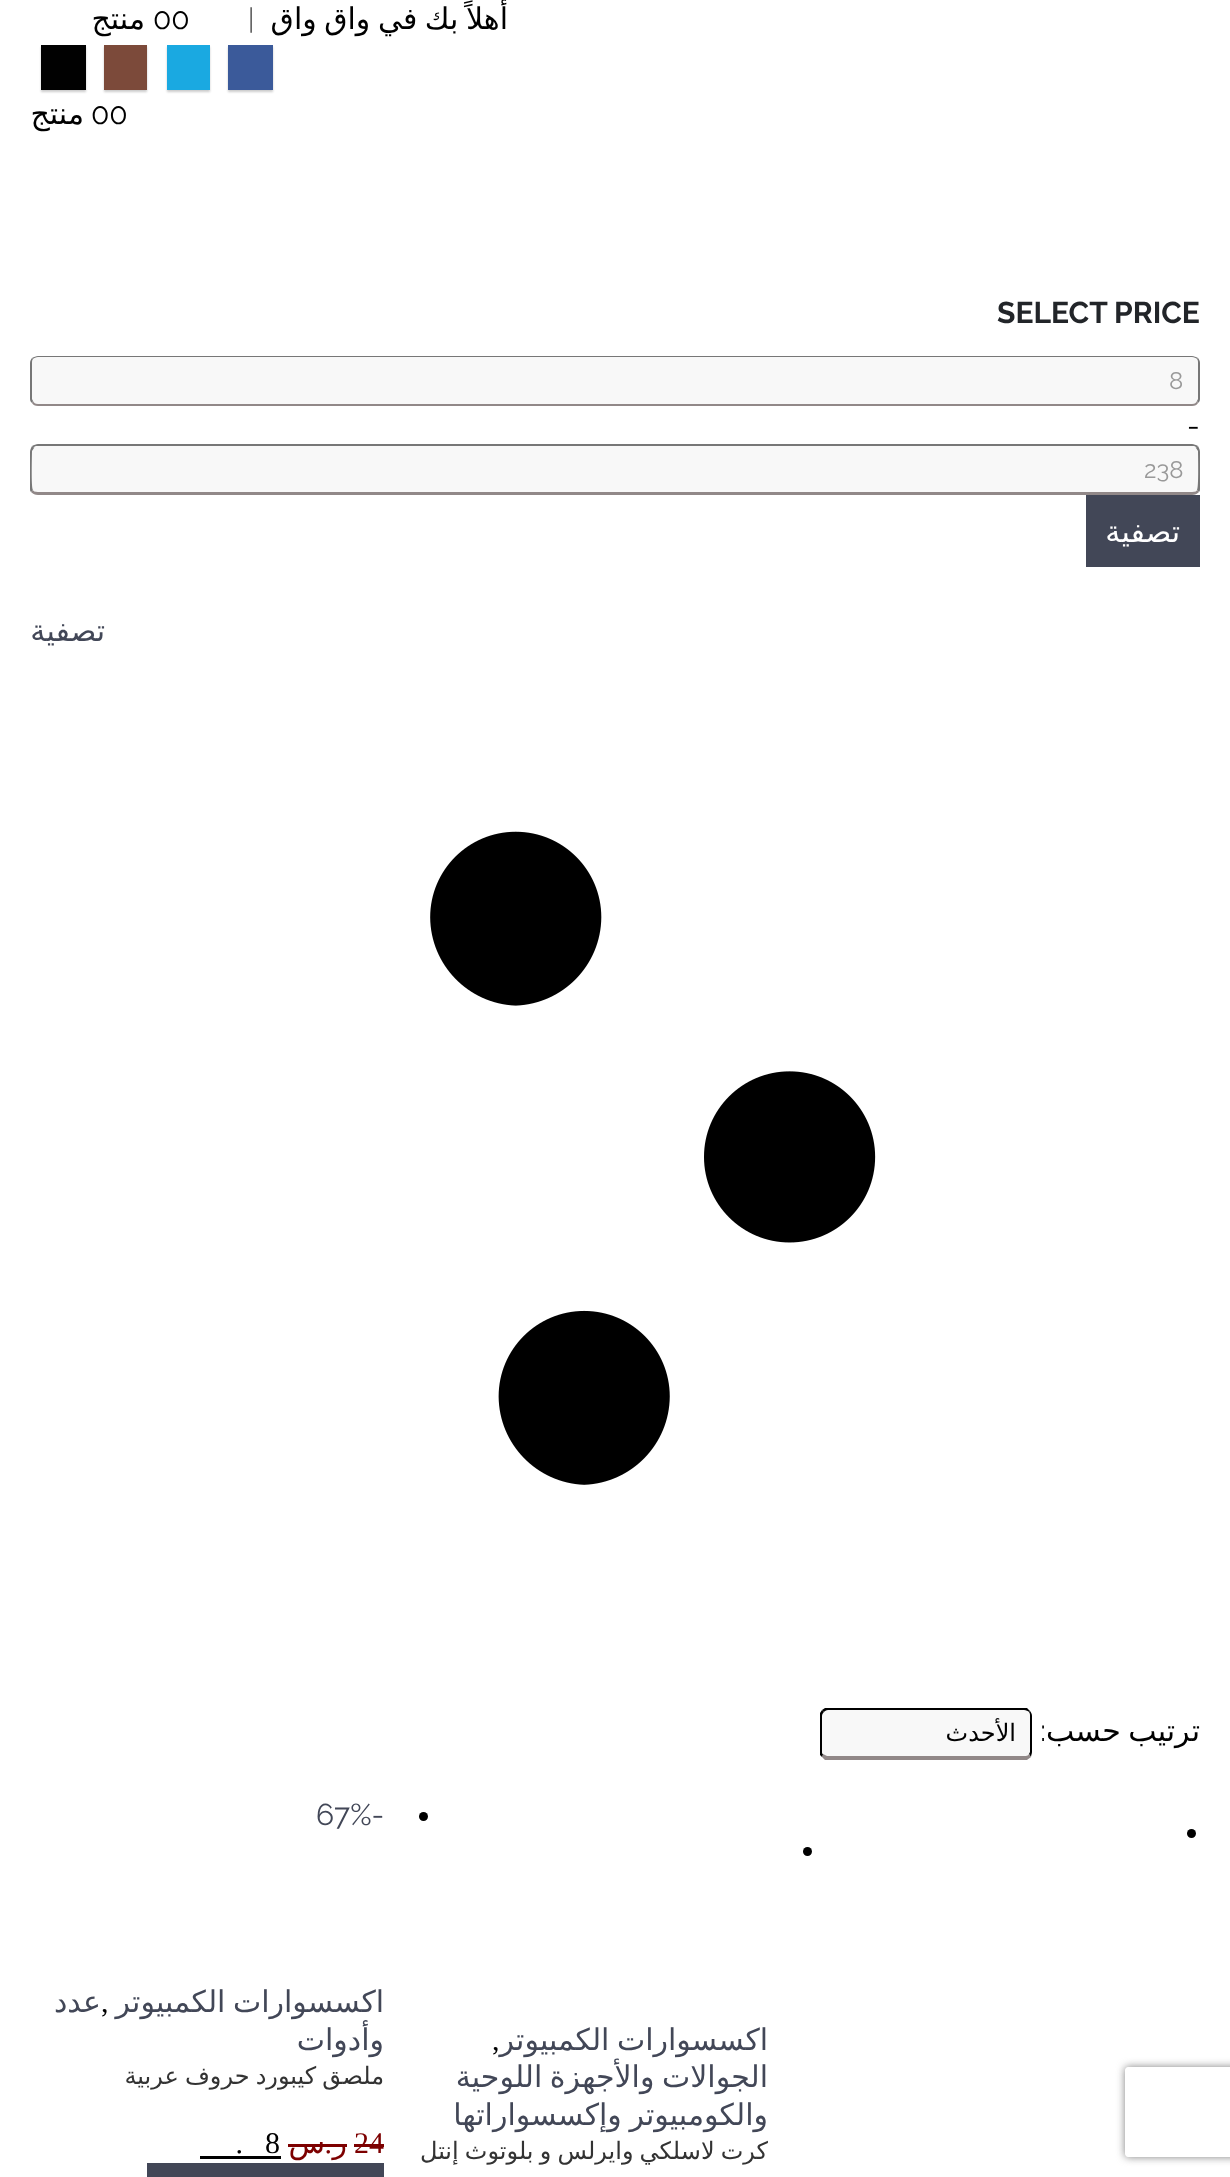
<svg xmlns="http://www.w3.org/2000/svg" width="1230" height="2177">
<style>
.a{font:30px DejaVu Sans;direction:rtl;fill:#000}
.b{font:300 28px Raleway;fill:#333}
.c{font:30px Raleway;fill:#000}
.d{font:bold 30px Raleway;fill:#222529}
.e{font:24px Raleway;fill:#999}
.f{font:30px DejaVu Sans;direction:rtl;fill:#fff}
.g{font:30px DejaVu Sans;direction:rtl;fill:#424757}
.h{font:30px Raleway;direction:rtl;fill:#000}
.i{font:24px DejaVu Sans;direction:rtl;fill:#000}
.j{font:30px Raleway;fill:#424757}
.k{font:30px Liberation Serif;fill:#000}
.l{font:24px DejaVu Sans;direction:rtl;fill:#333}
.m{font:30px Liberation Serif;fill:#7d0000}
.n{font:30px Liberation Serif;direction:rtl;fill:#7d0000}
.o{font:30px DejaVu Sans;direction:rtl;fill:#7d0000}
.p{font:30px Liberation Serif;direction:rtl;fill:#000}
</style>
<defs>
<clipPath id="clip1"><path d="M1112 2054h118v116h-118zm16 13h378c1.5 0 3 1.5 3 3v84c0 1.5-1.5 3-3 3h-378c-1.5 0-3-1.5-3-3v-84c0-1.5 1.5-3 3-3z" clip-rule="evenodd"/></clipPath>
</defs>
<rect width="100%" height="100%" fill="#fff"/>
<path fill="#00000033" filter="blur(1px)" d="M228 47h45v45H228z"/>
<path fill="#3b5a9a" d="M228 45h45v45H228z"/>
<path fill="#00000033" filter="blur(1px)" d="M167 47h43v45H167z"/>
<path fill="#1aa9e1" d="M167 45h43v45H167z"/>
<path fill="#00000033" filter="blur(1px)" d="M104 47h43v45H104z"/>
<path fill="#7c4a3a" d="M104 45h43v45H104z"/>
<path fill="#00000033" filter="blur(1px)" d="M41 47h45v45H41z"/>
<path fill="#010101" d="M41 45h45v45H41z"/>
<path fill="#f8f8f8" d="M38 357h1154c4 0 6 3 6 6v36c0 2-2 5-6 5h-1154c-4 0-6-3-6-5v-36c0-3 2-6 6-6z"/>
<path fill="#777" d="M38 356c-2 0-4 1-6 2l1 1c1-1 3-2 5-2h1154c2 0 4 1 5 2l1-1c-2-1-4-2-6-2z"/>
<path fill="#777" d="M1198 358c1 1 2 3 2 5v36c0 2-1 3-2 4l-1-2l1-2v-36c0-1 0-3-1-4z"/>
<path fill="#918888" d="M1198 403c-1 2-3 3-6 3h-1154c-3 0-5-1-6-3l1-2c1 2 2 3 5 3h1154c3 0 4-1 5-3z"/>
<path fill="#777" d="M30 363v36c0 2 1 3 2 4l1-2l-1-2v-36c0-1 0-3 1-4l-1-1c-1 1-2 3-2 5z"/>
<path fill="#f8f8f8" d="M38 446h1154c4 0 6 2 6 6v36c0 2-2 4-6 4h-1154c-4 0-6-2-6-4v-36c0-4 2-6 6-6z"/>
<path fill="#777" d="M38 444c-2 0-4 1-6 2l2 2c0-2 2-2 4-2h1154c2 0 4 0 4 2l2-2c-2-1-4-2-6-2z"/>
<path fill="#777" d="M1200 488v-36c0-2-1-4-2-6l-2 2l2 3c0 3 1 37-1 39l2 2c1-1 1-2 1-4z"/>
<path fill="#918888" d="M38 495h1154c3 0 5-1 7-3l-2-2c0 1-2 2-5 2h-1154c-3 0-5-1-5-2l-2 2c2 2 4 3 7 3z"/>
<path fill="#777" d="M30 452v36c0 2 0 3 1 4l2-2c-2-2-1-36-1-39l2-3l-2-2c-1 2-2 4-2 6z"/>
<path fill="#424757" d="M1086 495h114v72H1086z"/>
<image href="1.png" x="430" y="831" width="446" height="654"/>
<path fill="#f8f8f8" d="M828 1710h196c4 0 6 3 6 6v36c0 2-2 4-6 4h-196c-3 0-6-2-6-4v-36c0-3 3-6 6-6z"/>
<path fill="#000" d="M828 1710c-2 0-3 1-4 2l-2-2l3-2h202l3 3l-1 1c-1-1-3-2-5-2z"/>
<path fill="#000" d="M1032 1752v-36c0-2-1-4-2-5l-1 1c1 1 1 3 1 4v36l-1 2l2 3c0-2 1-3 1-5z"/>
<path fill="#918888" d="M825 1760l-3-3l1-3l4 2h197c2 0 4 0 5-2l2 3c-1 1-3 2-4 3z"/>
<path fill="#000" d="M820 1713l2-3l2 2c-1 1-2 2-2 4v36c0 1 0 2 1 2l-1 3l-2-2z"/>
<circle fill="#000" cx="1191.5" cy="1833.5" r="4.5"/>
<circle fill="#000" cx="423.5" cy="1816.5" r="4.5"/>
<path fill="#7d0000" d="M354 2144h30v3H354z"/>
<path fill="#7d0000" d="M288 2144h59v3H288z"/>
<path fill="#000" d="M200 2156h81v3H200z"/>
<path fill="#424757" d="M147 2163h237v14H147z"/>
<circle fill="#000" cx="807.5" cy="1851.5" r="4.5"/>
<g clip-path="url(#clip1)">
<rect fill="#808080" filter="blur(4px)" x="1125" y="2067" width="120" height="90" rx="3"/>
</g>
<text class="a" x="508" y="29" word-spacing="-2">أهلاً بك في واق واق</text>
<text class="b" x="248" y="29">|</text>
<text class="c" x="153" y="29">00</text>
<text class="a" x="145" y="29">منتج</text>
<text class="c" x="91" y="124">00</text>
<text class="a" x="84" y="124">منتج</text>
<text class="d" x="997" y="323">SELECT PRICE</text>
<text class="e" x="1169" y="389">8</text>
<text class="c" x="1187" y="436">-</text>
<text class="e" x="1144" y="478">238</text>
<text class="f" x="1180" y="542">تصفية</text>
<text class="g" x="105" y="641">تصفية</text>
<text class="a" x="1200" y="1741" word-spacing="-2">ترتيب حسب</text>
<text class="h" x="1046" y="1741">:</text>
<text class="i" x="1016" y="1741">الأحدث</text>
<text class="j" x="316" y="1825">67%-</text>
<text class="g" x="384" y="2012" word-spacing="-2">اكسسوارات الكمبيوتر</text>
<text class="k" x="101" y="2012">,</text>
<text class="g" x="101" y="2012">عدد</text>
<text class="g" x="384" y="2050">وأدوات</text>
<text class="l" x="384" y="2084" word-spacing="-1.5">ملصق كيبورد حروف عربية</text>
<text class="m" x="354" y="2153">24</text>
<text class="n" x="332" y="2153">.</text>
<text class="o" x="347" y="2153">ر</text>
<text class="o" x="325" y="2153">س</text>
<text class="k" x="265" y="2153">8</text>
<text class="p" x="243" y="2153">.</text>
<text class="g" x="768" y="2050" word-spacing="-2">اكسسوارات الكمبيوتر</text>
<text class="k" x="492" y="2050">,</text>
<text class="g" x="768" y="2087" word-spacing="-2">الجوالات والأجهزة اللوحية</text>
<text class="g" x="768" y="2125" word-spacing="-2">والكومبيوتر وإكسسواراتها</text>
<text class="l" x="768" y="2159" word-spacing="-1.5">كرت لاسلكي وايرلس و بلوتوث إنتل</text>
</svg>
